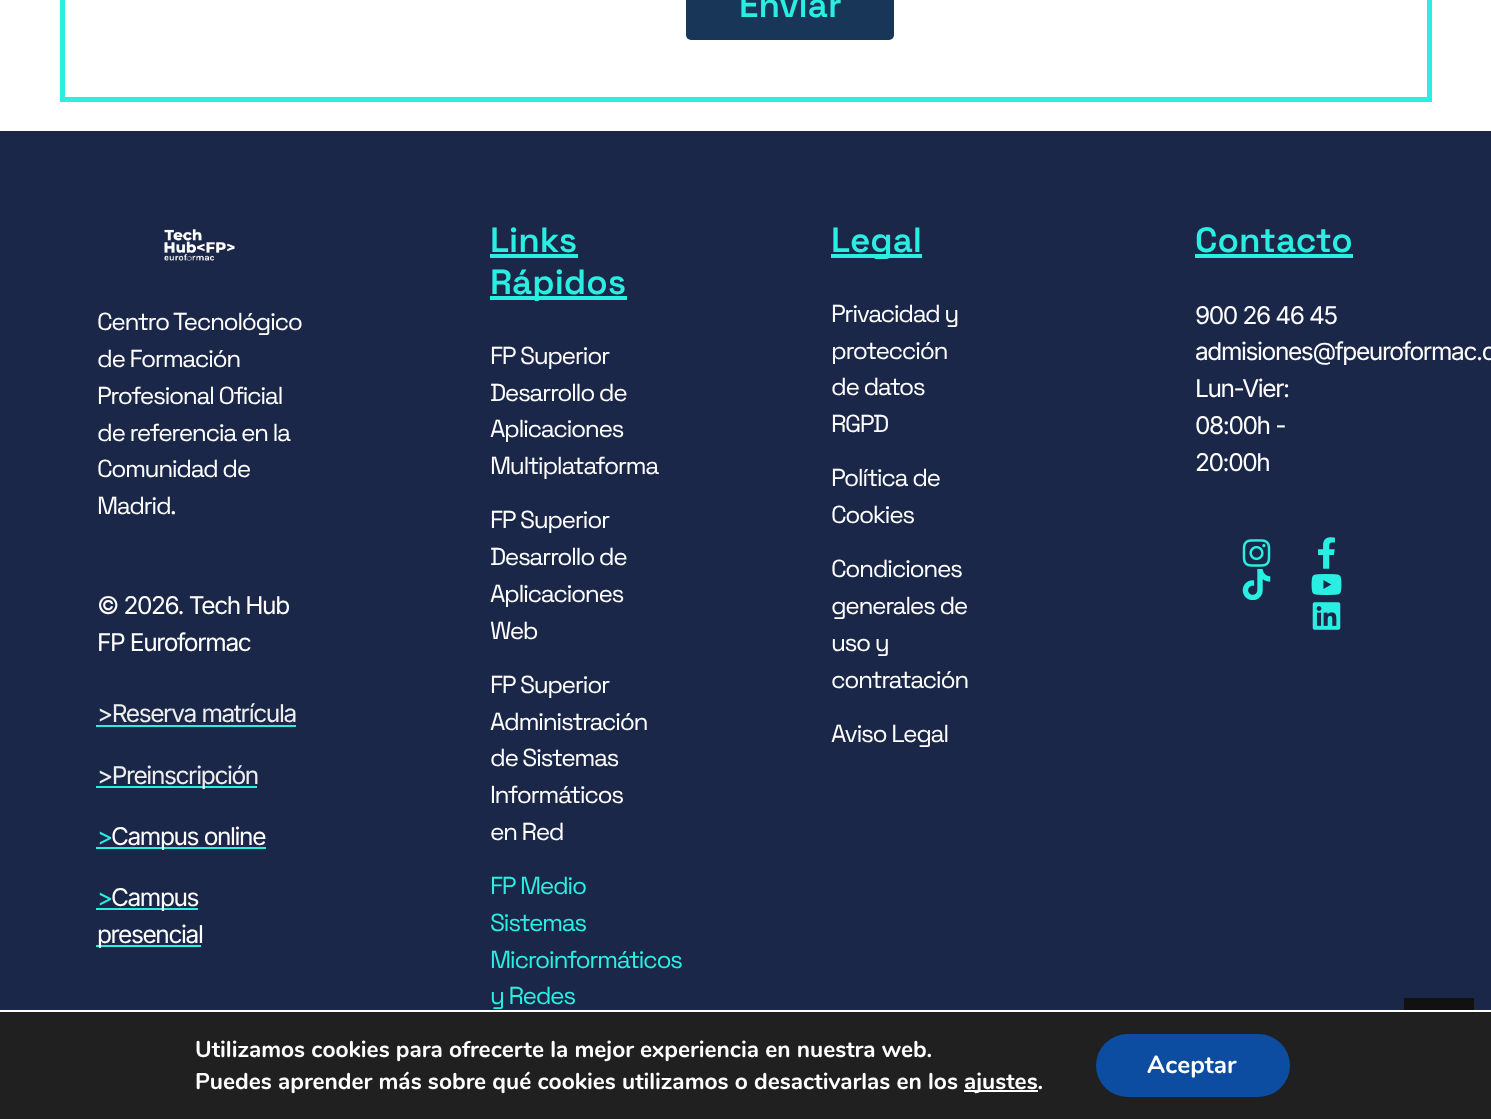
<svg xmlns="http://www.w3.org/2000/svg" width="1491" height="1119">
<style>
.a{font:600 35px Space Grotesk;fill:#2aeee1}
.b{font:24.5px Space Grotesk;letter-spacing:-1.4px;fill:#fff}
.c{font:24.5px Inter;letter-spacing:-1.4px;fill:#fff}
.d{font:24.5px Inter;letter-spacing:-1.4px;fill:#eee}
.e{font:24.5px Inter;letter-spacing:-1.4px;fill:#2aeee1}
.f{font:24.5px Space Grotesk;letter-spacing:-1.4px;fill:#2aeee1}
.g{font:bold 22.75px Nunito;fill:#fff}
.h{font:bold 24.5px Nunito;fill:#fff}
</style>
<rect width="100%" height="100%" fill="#fff"/>
<path fill="none" stroke="#2aeee1" stroke-width="5" d="M62.5 -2.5h1367v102H62.5z"/>
<rect fill="#183657" x="686" y="-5" width="208" height="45" rx="5"/>
<path fill="#1b2748" d="M0 131h1491v879H0z"/>
<image href="1.png" x="164" y="229" width="71" height="32"/>
<path fill="#2aeee1" d="M96 725h200v2H96z"/>
<path fill="#2aeee1" d="M96 786h161v2H96z"/>
<path fill="#2aeee1" d="M96 847h170v2H96z"/>
<path fill="#2aeee1" d="M96 908h102v2H96z"/>
<path fill="#2aeee1" d="M96 945h105v2H96z"/>
<path fill="#2aeee1" d="M490 254h88v4H490z"/>
<path fill="#2aeee1" d="M490 296h137v4H490z"/>
<path fill="#2aeee1" d="M831 254h91v4H831z"/>
<path fill="#2aeee1" d="M1195 254h158v4H1195z"/>
<image href="2.png" x="1242" y="539" width="29" height="28"/>
<image href="3.png" x="1318" y="537" width="17" height="32"/>
<image href="4.png" x="1242" y="569" width="29" height="31"/>
<image href="5.png" x="1311" y="574" width="31" height="21"/>
<image href="6.png" x="1312" y="602" width="29" height="28"/>
<path fill="#111" d="M1404 998h70v12H1404z"/>
<path fill="#202020" d="M0 1012h1491v107H0z"/>
<path fill="#fff" d="M964 1090h74v2H964z"/>
<rect fill="#0c4da2" x="1096" y="1034" width="194" height="63" rx="31.5"/>
<text class="a" x="739" y="17">Enviar</text>
<text class="b" x="97" y="330">Centro Tecnológico</text>
<text class="b" x="97" y="367">de Formación</text>
<text class="b" x="97" y="404">Profesional Oficial</text>
<text class="b" x="97" y="441">de referencia en la</text>
<text class="b" x="97" y="477">Comunidad de</text>
<text class="b" x="97" y="514">Madrid.</text>
<text class="c" x="97" y="614">© 2026. Tech Hub</text>
<text class="c" x="97" y="651">FP Euroformac</text>
<text class="d" x="97" y="722">&gt;Reserva matrícula</text>
<text class="d" x="97" y="784">&gt;Preinscripción</text>
<text class="e" x="97" y="845">&gt;</text>
<text class="c" x="111" y="845">Campus online</text>
<text class="e" x="97" y="906">&gt;</text>
<text class="c" x="111" y="906">Campus</text>
<text class="c" x="97" y="943">presencial</text>
<text class="a" x="490" y="252">Links</text>
<text class="a" x="490" y="294">Rápidos</text>
<text class="b" x="490" y="364">FP Superior</text>
<text class="b" x="490" y="401">Desarrollo de</text>
<text class="b" x="490" y="437">Aplicaciones</text>
<text class="b" x="490" y="474">Multiplataforma</text>
<text class="b" x="490" y="528">FP Superior</text>
<text class="b" x="490" y="565">Desarrollo de</text>
<text class="b" x="490" y="602">Aplicaciones</text>
<text class="b" x="490" y="639">Web</text>
<text class="b" x="490" y="693">FP Superior</text>
<text class="b" x="490" y="730">Administración</text>
<text class="b" x="490" y="766">de Sistemas</text>
<text class="b" x="490" y="803">Informáticos</text>
<text class="b" x="490" y="840">en Red</text>
<text class="f" x="490" y="894">FP Medio</text>
<text class="f" x="490" y="931">Sistemas</text>
<text class="f" x="490" y="968">Microinformáticos</text>
<text class="f" x="490" y="1004">y Redes</text>
<text class="a" x="831" y="252">Legal</text>
<text class="b" x="831" y="322">Privacidad y</text>
<text class="b" x="831" y="359">protección</text>
<text class="b" x="831" y="395">de datos</text>
<text class="b" x="831" y="432">RGPD</text>
<text class="b" x="831" y="486">Política de</text>
<text class="b" x="831" y="523">Cookies</text>
<text class="b" x="831" y="577">Condiciones</text>
<text class="b" x="831" y="614">generales de</text>
<text class="b" x="831" y="651">uso y</text>
<text class="b" x="831" y="688">contratación</text>
<text class="b" x="831" y="742">Aviso Legal</text>
<text class="a" x="1195" y="252">Contacto</text>
<text class="c" x="1195" y="324">900 26 46 45</text>
<text class="c" x="1195" y="360">admisiones@fpeuroformac.c</text>
<text class="c" x="1195" y="397">Lun-Vier:</text>
<text class="c" x="1195" y="434">08:00h -</text>
<text class="c" x="1195" y="471">20:00h</text>
<text class="g" x="195" y="1057">Utilizamos cookies para ofrecerte la mejor experiencia en nuestra web.</text>
<text class="g" x="195" y="1089">Puedes aprender más sobre qué cookies utilizamos o desactivarlas en los</text>
<text class="g" x="964" y="1089">ajustes.</text>
<text class="h" x="1147" y="1073">Aceptar</text>
</svg>
